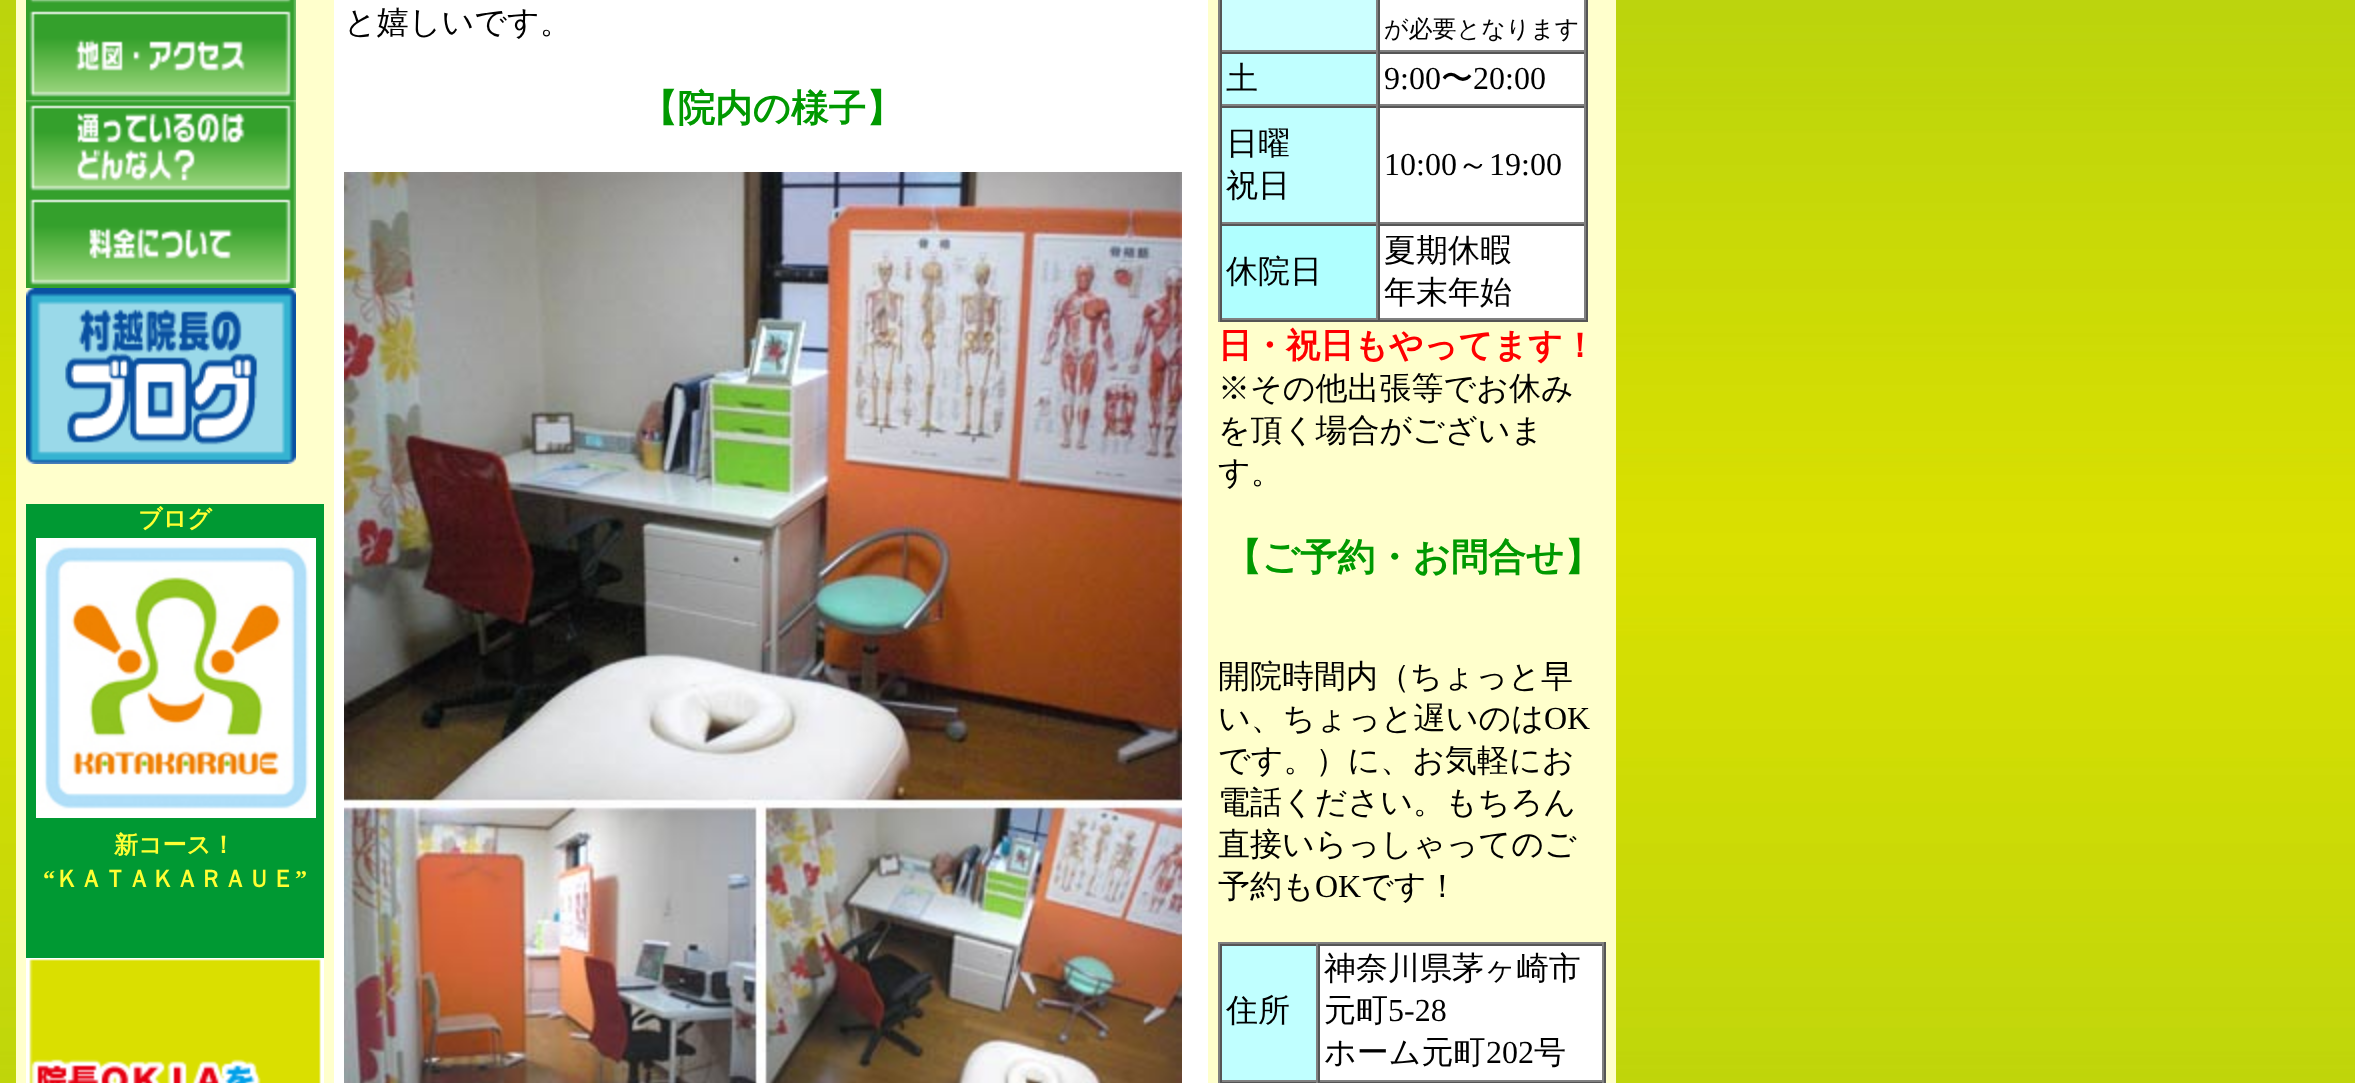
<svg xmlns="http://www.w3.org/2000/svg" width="2355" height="1083">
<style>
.a{font:bold 24px WenQuanYi Zen Hei;fill:#ff3}
.b{font:bold 24px Liberation Serif;fill:#ff3}
.c{font:500 32px WenQuanYi Zen Hei;fill:#000}
.d{font:bold 37.5px WenQuanYi Zen Hei;fill:#090}
.e{font:500 24px WenQuanYi Zen Hei;fill:#000}
.f{font:32px Liberation Serif;fill:#000}
.g{font:bold 34px WenQuanYi Zen Hei;fill:#f00}
</style>
<rect width="100%" height="100%" fill="#fff"/>
<image href="1.png" x="0" y="0" width="2355" height="1083"/>
<path fill="#ffc" d="M16 0h318v1083H16z"/>
<image href="2.png" x="26" y="0" width="270" height="6"/>
<image href="3.png" x="26" y="6" width="270" height="94"/>
<image href="4.png" x="26" y="100" width="270" height="94"/>
<image href="5.png" x="26" y="194" width="270" height="94"/>
<image href="6.png" x="26" y="288" width="270" height="176"/>
<path fill="#093" d="M26 504h298v454H26z"/>
<image href="7.png" x="36" y="538" width="280" height="280"/>
<image href="8.png" x="26" y="958" width="298" height="125"/>
<path fill="#fff" d="M334 0h874v1083H334z"/>
<image href="9.png" x="344" y="172" width="838" height="911"/>
<path fill="#ffc" d="M1208 0h408v1083H1208z"/>
<path fill="#555" d="M1586 0h2v322H1586z"/>
<path fill="#555" d="M1218 320h370v2H1218z"/>
<path fill="#808080" d="M1218 0h2v322H1218z"/>
<path fill="#cff" d="M1222 0h154v50H1222z"/>
<path fill="#808080" d="M1376 0h2v52H1376z"/>
<path fill="#808080" d="M1220 50h158v2H1220z"/>
<path fill="#555" d="M1220 0h2v52H1220z"/>
<path fill="#fff" d="M1380 0h204v50H1380z"/>
<path fill="#808080" d="M1584 0h2v52H1584z"/>
<path fill="#808080" d="M1378 50h208v2H1378z"/>
<path fill="#555" d="M1378 0h2v52H1378z"/>
<path fill="#c0ffff" d="M1222 54h154v50H1222z"/>
<path fill="#555" d="M1220 52h366v2H1220z"/>
<path fill="#808080" d="M1376 52h2v54H1376z"/>
<path fill="#808080" d="M1220 104h158v2H1220z"/>
<path fill="#555" d="M1220 52h2v54H1220z"/>
<path fill="#fff" d="M1380 54h204v50H1380z"/>
<path fill="#808080" d="M1584 52h2v54H1584z"/>
<path fill="#808080" d="M1378 104h208v2H1378z"/>
<path fill="#555" d="M1378 52h2v54H1378z"/>
<path fill="#c0ffff" d="M1222 108h154v114H1222z"/>
<path fill="#555" d="M1220 106h366v2H1220z"/>
<path fill="#808080" d="M1376 106h2v118H1376z"/>
<path fill="#808080" d="M1220 222h158v2H1220z"/>
<path fill="#555" d="M1220 106h2v118H1220z"/>
<path fill="#fff" d="M1380 108h204v114H1380z"/>
<path fill="#808080" d="M1584 106h2v118H1584z"/>
<path fill="#808080" d="M1378 222h208v2H1378z"/>
<path fill="#555" d="M1378 106h2v118H1378z"/>
<path fill="#b0ffff" d="M1222 226h154v92H1222z"/>
<path fill="#555" d="M1220 224h366v2H1220z"/>
<path fill="#808080" d="M1376 224h2v96H1376z"/>
<path fill="#808080" d="M1220 318h158v2H1220z"/>
<path fill="#555" d="M1220 224h2v96H1220z"/>
<path fill="#fff" d="M1380 226h204v92H1380z"/>
<path fill="#808080" d="M1584 224h2v96H1584z"/>
<path fill="#808080" d="M1378 318h208v2H1378z"/>
<path fill="#555" d="M1378 224h2v96H1378z"/>
<path fill="#808080" d="M1218 942h388v2H1218z"/>
<path fill="#555" d="M1604 942h2v141H1604z"/>
<path fill="#808080" d="M1218 942h2v141H1218z"/>
<path fill="#c0ffff" d="M1222 946h94v134H1222z"/>
<path fill="#555" d="M1220 944h384v2H1220z"/>
<path fill="#808080" d="M1316 944h2v138H1316z"/>
<path fill="#808080" d="M1220 1080h98v2H1220z"/>
<path fill="#555" d="M1220 944h2v138H1220z"/>
<path fill="#fff" d="M1320 946h282v134H1320z"/>
<path fill="#808080" d="M1602 944h2v138H1602z"/>
<path fill="#808080" d="M1318 1080h286v2H1318z"/>
<path fill="#555" d="M1318 944h2v138H1318z"/>
<path fill="#555" d="M1220 1082h384v1H1220z"/>
<path fill="#808080" d="M1316 1082h2v1H1316z"/>
<path fill="#808080" d="M1602 1082h2v1H1602z"/>
<text class="a" x="138" y="527">ブログ</text>
<text class="a" x="114" y="853">新コース！</text>
<text class="b" x="43" y="887">“</text>
<text class="a" x="55" y="887">ＫＡＴＡＫＡＲＡＵＥ</text>
<text class="b" x="295" y="887">”</text>
<text class="c" x="344" y="33">と嬉しいです。</text>
<text class="d" x="640" y="121">【院内の様子】</text>
<text class="e" x="1384" y="37">が必要となります</text>
<text class="c" x="1226" y="89">土</text>
<text class="f" x="1384" y="89">9:00</text>
<text class="c" x="1441" y="89">〜</text>
<text class="f" x="1473" y="89">20:00</text>
<text class="c" x="1226" y="154">日曜</text>
<text class="c" x="1226" y="196">祝日</text>
<text class="f" x="1384" y="175">10:00</text>
<text class="c" x="1457" y="175">～</text>
<text class="f" x="1489" y="175">19:00</text>
<text class="c" x="1226" y="282">休院日</text>
<text class="c" x="1384" y="261">夏期休暇</text>
<text class="c" x="1384" y="303">年末年始</text>
<text class="g" x="1218" y="357">日・祝日もやってます！</text>
<text class="c" x="1218" y="399">※その他出張等でお休み</text>
<text class="c" x="1218" y="441">を頂く場合がございま</text>
<text class="c" x="1218" y="483">す。</text>
<text class="d" x="1224" y="570">【ご予約・お問合せ】</text>
<text class="c" x="1218" y="687">開院時間内（ちょっと早</text>
<text class="c" x="1218" y="729">い、ちょっと遅いのは</text>
<text class="f" x="1544" y="729">OK</text>
<text class="c" x="1218" y="771">です。）に、お気軽にお</text>
<text class="c" x="1218" y="813">電話ください。もちろん</text>
<text class="c" x="1218" y="855">直接いらっしゃってのご</text>
<text class="c" x="1218" y="897">予約も</text>
<text class="f" x="1315" y="897">OK</text>
<text class="c" x="1361" y="897">です！</text>
<text class="c" x="1226" y="1021">住所</text>
<text class="c" x="1324" y="979">神奈川県茅ヶ崎市</text>
<text class="c" x="1324" y="1021">元町</text>
<text class="f" x="1388" y="1021">5-28</text>
<text class="c" x="1324" y="1063">ホーム元町</text>
<text class="f" x="1486" y="1063">202</text>
<text class="c" x="1534" y="1063">号</text>
</svg>
